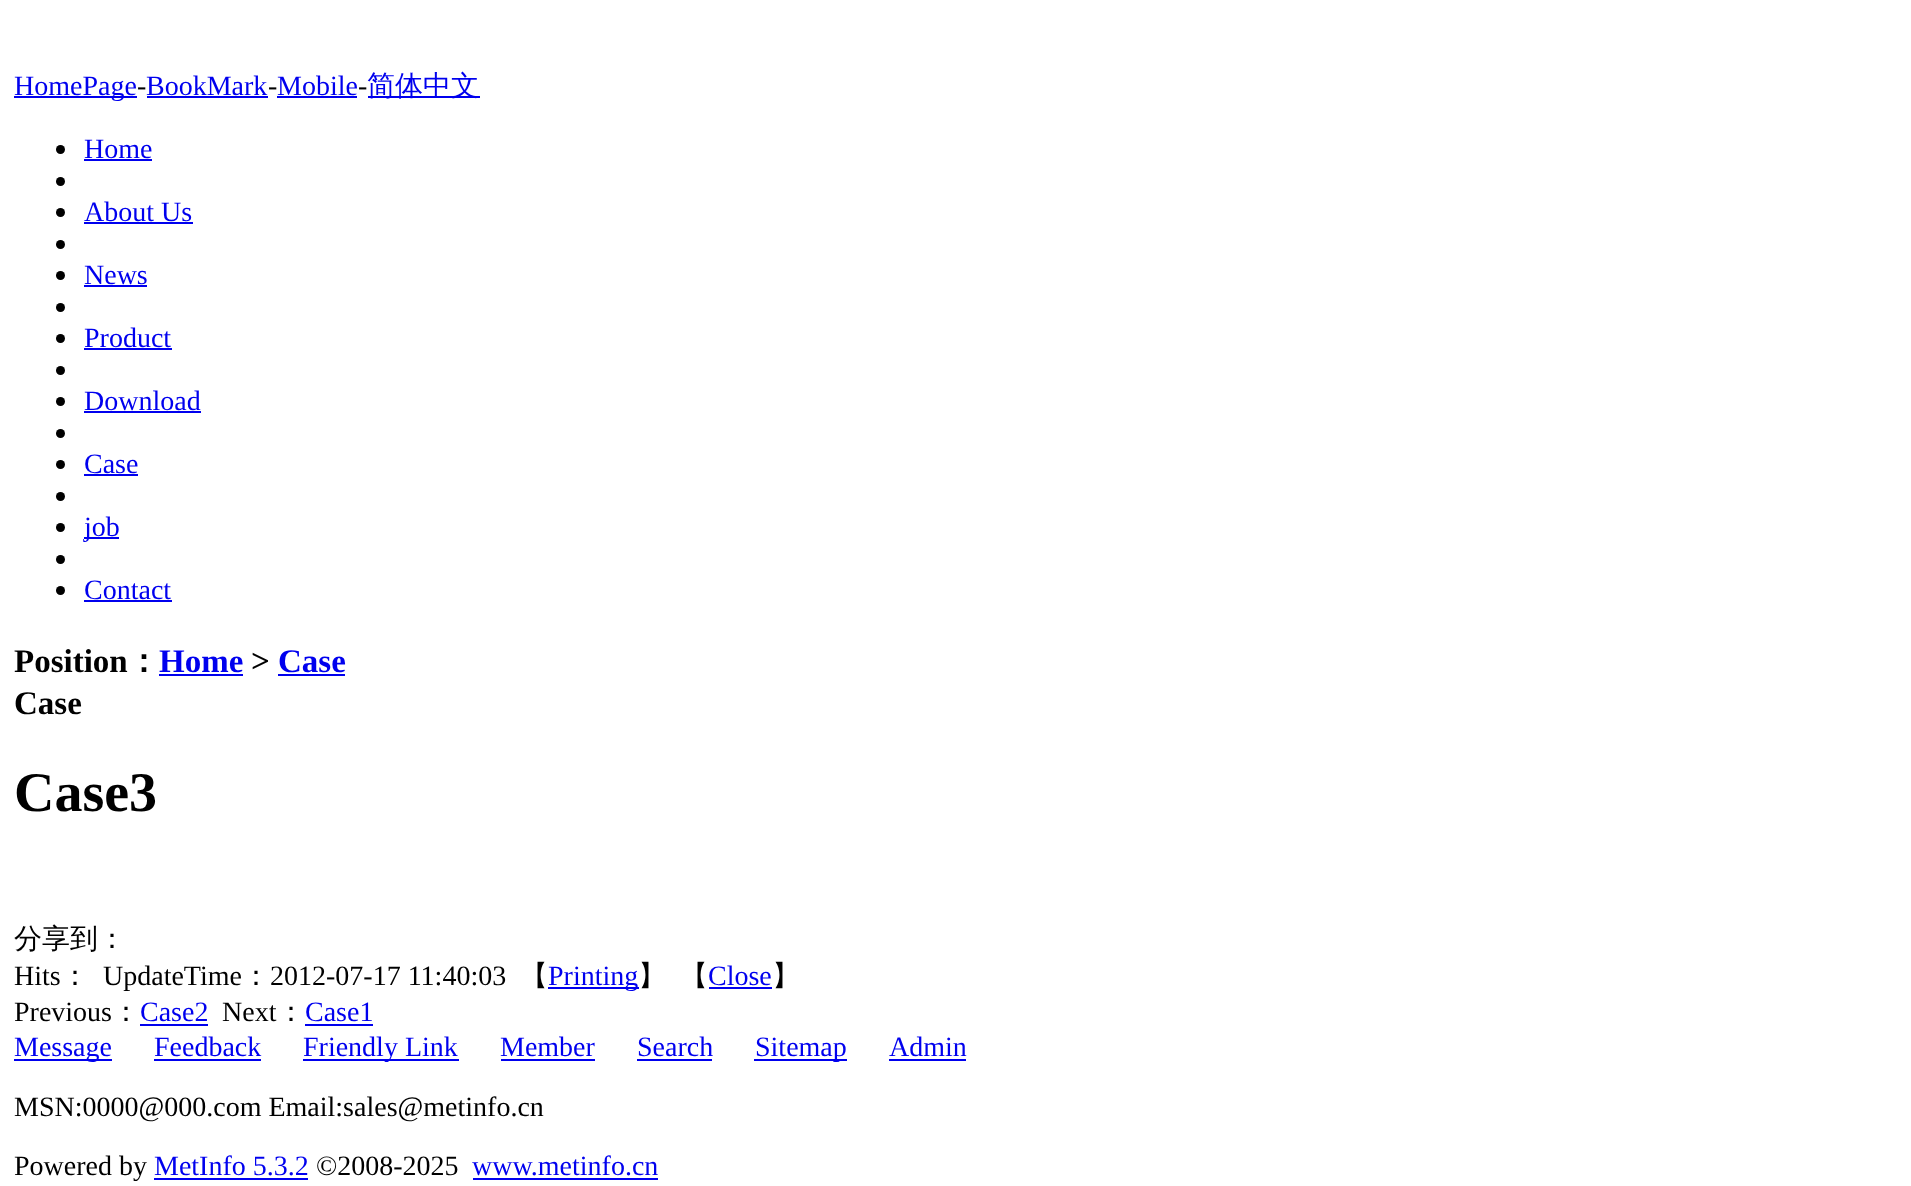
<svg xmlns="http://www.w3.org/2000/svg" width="1911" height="1186">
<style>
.a{font:28px Liberation Serif;fill:#00e}
.b{font:28px Liberation Serif;fill:#000}
.c{font:500 28px WenQuanYi Zen Hei;fill:#00e}
.d{font:bold 33px Liberation Serif;fill:#000}
.e{font:bold 33px WenQuanYi Zen Hei;fill:#000}
.f{font:bold 33px Liberation Serif;fill:#00e}
.g{font:bold 56px Liberation Serif;fill:#000}
.h{font:500 28px WenQuanYi Zen Hei;fill:#000}
</style>
<rect width="100%" height="100%" fill="#fff"/>
<path fill="#00e" d="M14 96h123v2H14z"/>
<path fill="#00e" d="M147 96h121v2H147z"/>
<path fill="#00e" d="M277 96h80v2H277z"/>
<path fill="#00e" d="M368 96h112v2H368z"/>
<circle fill="#000" cx="60.5" cy="149.5" r="4.5"/>
<path fill="#00e" d="M84 159h68v2H84z"/>
<circle fill="#000" cx="60.5" cy="181.5" r="4.5"/>
<circle fill="#000" cx="60.5" cy="212.5" r="4.5"/>
<path fill="#00e" d="M84 222h109v2H84z"/>
<circle fill="#000" cx="60.5" cy="244.5" r="4.5"/>
<circle fill="#000" cx="60.5" cy="275.5" r="4.5"/>
<path fill="#00e" d="M84 285h63v2H84z"/>
<circle fill="#000" cx="60.5" cy="307.5" r="4.5"/>
<circle fill="#000" cx="60.5" cy="338.5" r="4.5"/>
<path fill="#00e" d="M84 348h88v2H84z"/>
<circle fill="#000" cx="60.5" cy="370.5" r="4.5"/>
<circle fill="#000" cx="60.5" cy="401.5" r="4.5"/>
<path fill="#00e" d="M84 411h117v2H84z"/>
<circle fill="#000" cx="60.5" cy="433.5" r="4.5"/>
<circle fill="#000" cx="60.5" cy="464.5" r="4.5"/>
<path fill="#00e" d="M84 474h54v2H84z"/>
<circle fill="#000" cx="60.5" cy="496.5" r="4.5"/>
<circle fill="#000" cx="60.5" cy="527.5" r="4.5"/>
<path fill="#00e" d="M84 537h35v2H84z"/>
<circle fill="#000" cx="60.5" cy="559.5" r="4.5"/>
<circle fill="#000" cx="60.5" cy="590.5" r="4.5"/>
<path fill="#00e" d="M84 600h88v2H84z"/>
<path fill="#00e" d="M159 674h84v2H159z"/>
<path fill="#00e" d="M278 674h67v2H278z"/>
<path fill="#00e" d="M548 987h91v2H548z"/>
<path fill="#00e" d="M709 987h63v2H709z"/>
<path fill="#00e" d="M140 1024h68v2H140z"/>
<path fill="#00e" d="M305 1024h68v2H305z"/>
<path fill="#00e" d="M14 1059h98v2H14z"/>
<path fill="#00e" d="M154 1059h107v2H154z"/>
<path fill="#00e" d="M303 1059h156v2H303z"/>
<path fill="#00e" d="M501 1059h94v2H501z"/>
<path fill="#00e" d="M637 1059h75v2H637z"/>
<path fill="#00e" d="M754 1059h93v2H754z"/>
<path fill="#00e" d="M889 1059h77v2H889z"/>
<path fill="#00e" d="M154 1178h154v2H154z"/>
<path fill="#00e" d="M473 1178h185v2H473z"/>
<text class="a" x="14" y="95">HomePage</text>
<text class="b" x="137" y="95">-</text>
<text class="a" x="146" y="95">BookMark</text>
<text class="b" x="268" y="95">-</text>
<text class="a" x="277" y="95">Mobile</text>
<text class="b" x="358" y="95">-</text>
<text class="c" x="367" y="95">简体中文</text>
<text class="a" x="84" y="158">Home</text>
<text class="a" x="84" y="221">About Us</text>
<text class="a" x="84" y="284">News</text>
<text class="a" x="84" y="347">Product</text>
<text class="a" x="84" y="410">Download</text>
<text class="a" x="84" y="473">Case</text>
<text class="a" x="84" y="536">job</text>
<text class="a" x="84" y="599">Contact</text>
<text class="d" x="14" y="672">Position</text>
<text class="e" x="127" y="672">：</text>
<text class="f" x="159" y="672">Home</text>
<text class="d" x="251" y="672">&gt;</text>
<text class="f" x="278" y="672">Case</text>
<text class="d" x="14" y="714">Case</text>
<text class="g" x="14" y="811">Case3</text>
<text class="h" x="14" y="948">分享到：</text>
<text class="b" x="14" y="985">Hits</text>
<text class="h" x="61" y="985">：</text>
<text class="b" x="103" y="985">UpdateTime</text>
<text class="h" x="242" y="985">：</text>
<text class="b" x="270" y="985">2012-07-17 11:40:03</text>
<text class="h" x="520" y="985">【</text>
<text class="a" x="548" y="985">Printing</text>
<text class="h" x="638" y="985">】</text>
<text class="h" x="680" y="985">【</text>
<text class="a" x="708" y="985">Close</text>
<text class="h" x="772" y="985">】</text>
<text class="b" x="14" y="1021">Previous</text>
<text class="h" x="112" y="1021">：</text>
<text class="a" x="140" y="1021">Case2</text>
<text class="b" x="222" y="1021">Next</text>
<text class="h" x="277" y="1021">：</text>
<text class="a" x="305" y="1021">Case1</text>
<text class="a" x="14" y="1056">Message</text>
<text class="a" x="154" y="1056">Feedback</text>
<text class="a" x="303" y="1056">Friendly Link</text>
<text class="a" x="500" y="1056">Member</text>
<text class="a" x="637" y="1056">Search</text>
<text class="a" x="755" y="1056">Sitemap</text>
<text class="a" x="889" y="1056">Admin</text>
<text class="b" x="14" y="1116">MSN:0000@000.com Email:sales@metinfo.cn</text>
<text class="b" x="14" y="1175">Powered by</text>
<text class="a" x="154" y="1175">MetInfo 5.3.2</text>
<text class="b" x="316" y="1175">©2008-2025</text>
<text class="a" x="472" y="1175">www.metinfo.cn</text>
</svg>
